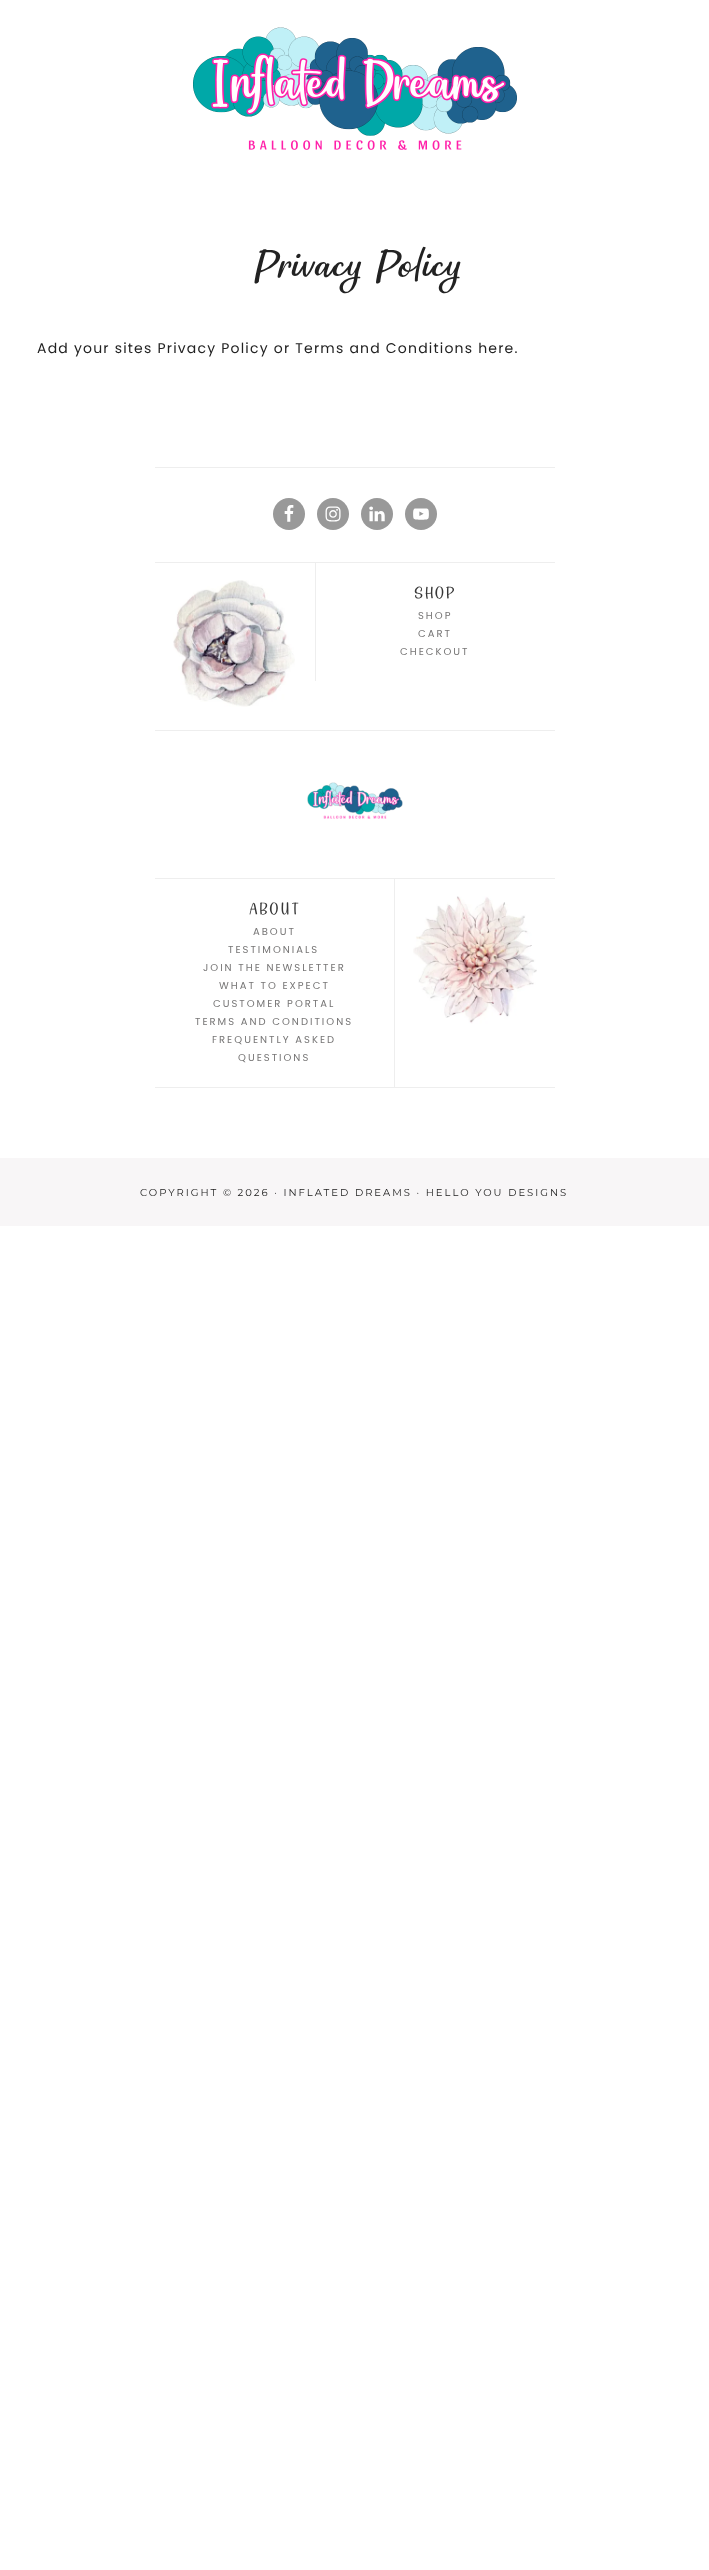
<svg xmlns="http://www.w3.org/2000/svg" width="709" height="2570">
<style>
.a{font:italic 40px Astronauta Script;letter-spacing:1.25px;fill:#222}
.b{font:14px Poppins;letter-spacing:1.2px;fill:#222}
.c{font:14px Astronauta Script;letter-spacing:2px;fill:#373737}
.d{font:10px Poppins;letter-spacing:2px;fill:#777676}
.e{font:10px Montserrat;letter-spacing:2px;fill:#222}
</style>
<rect width="100%" height="100%" fill="#fff"/>
<image href="1.png" x="193" y="27" width="324" height="123"/>
<path fill="#eee" d="M155 467h400v1H155z"/>
<path fill="#eee" d="M155 562h400v1H155z"/>
<circle fill="#999" cx="289" cy="514" r="16"/>
<image href="2.png" x="284" y="505" width="10" height="17"/>
<circle fill="#999" cx="333" cy="514" r="16"/>
<image href="3.png" x="325" y="506" width="16" height="16"/>
<circle fill="#999" cx="377" cy="514" r="16"/>
<image href="4.png" x="369" y="506" width="16" height="16"/>
<circle fill="#999" cx="421" cy="514" r="16"/>
<image href="5.png" x="413" y="508" width="16" height="12"/>
<image href="6.png" x="173" y="580" width="122" height="127"/>
<path fill="#eee" d="M315 563h1v118H315z"/>
<path fill="#eee" d="M155 730h400v1H155z"/>
<image href="7.png" x="307" y="782" width="96" height="37"/>
<path fill="#eee" d="M155 878h400v1H155z"/>
<path fill="#eee" d="M394 879h1v208H394z"/>
<image href="8.png" x="413" y="896" width="124" height="128"/>
<path fill="#eee" d="M155 1087h400v1H155z"/>
<path fill="#f8f6f7" d="M0 1158h709v68H0z"/>
<text class="a" x="251" y="282">Privacy Policy</text>
<text class="b" x="37" y="353">Add your sites Privacy Policy or Terms and Conditions here.</text>
<text class="c" x="414" y="598">SHOP</text>
<text class="d" x="418" y="619">SHOP</text>
<text class="d" x="418" y="637">CART</text>
<text class="d" x="400" y="655">CHECKOUT</text>
<text class="c" x="249" y="914">ABOUT</text>
<text class="d" x="253" y="935">ABOUT</text>
<text class="d" x="228" y="953">TESTIMONIALS</text>
<text class="d" x="203" y="971">JOIN THE NEWSLETTER</text>
<text class="d" x="219" y="989">WHAT TO EXPECT</text>
<text class="d" x="213" y="1007">CUSTOMER PORTAL</text>
<text class="d" x="195" y="1025">TERMS AND CONDITIONS</text>
<text class="d" x="212" y="1043">FREQUENTLY ASKED</text>
<text class="d" x="238" y="1061">QUESTIONS</text>
<text class="e" x="140" y="1196">COPYRIGHT © 2026 · INFLATED DREAMS · HELLO YOU DESIGNS</text>
</svg>
